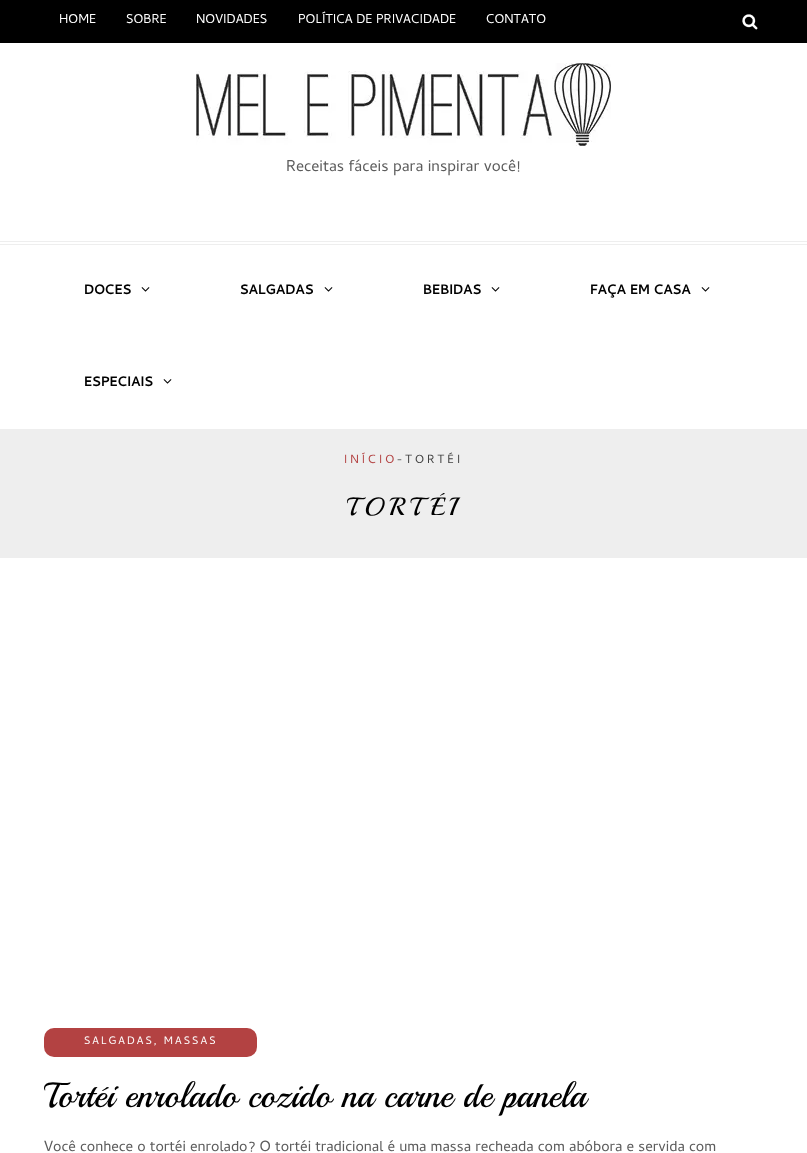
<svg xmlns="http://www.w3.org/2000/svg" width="807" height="1153">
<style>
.a{font:13px Cambay;fill:#fff}
.b{font:16px Cambay;fill:#5c5c5c}
.c{font:bold 14px Cambay;fill:#000}
.d{font:12px Cambay;letter-spacing:3px;fill:#b34242}
.e{font:12px Cambay;letter-spacing:3px;fill:#424242}
.f{font:25px Playball;letter-spacing:4px;fill:#000}
.g{font:11px Cambay;letter-spacing:2px;fill:#fff}
.h{font:35px Playball;fill:#000}
.i{font:15px Cambay;fill:#5c5c5c}
</style>
<rect width="100%" height="100%" fill="#fff"/>
<path fill="#000" d="M0 0h807v43H0z"/>
<image href="1.png" x="742" y="14" width="16" height="16"/>
<image href="2.png" x="196" y="63" width="415" height="83"/>
<path fill="#eee" d="M0 241h807v1H0z"/>
<path fill="#eee" d="M0 244h807v1H0z"/>
<image href="3.png" x="141" y="287" width="9" height="5"/>
<image href="3.png" x="324" y="287" width="9" height="5"/>
<image href="3.png" x="491" y="287" width="9" height="5"/>
<image href="3.png" x="701" y="287" width="9" height="5"/>
<image href="3.png" x="163" y="379" width="9" height="5"/>
<path fill="#eee" d="M0 429h807v129H0z"/>
<rect fill="#b34242" x="44" y="1028" width="213" height="29" rx="10"/>
<text class="a" x="59" y="23">HOME</text>
<text class="a" x="126" y="23">SOBRE</text>
<text class="a" x="196" y="23">NOVIDADES</text>
<text class="a" x="298" y="23">POLÍTICA DE PRIVACIDADE</text>
<text class="a" x="486" y="23">CONTATO</text>
<text class="b" x="286" y="171">Receitas fáceis para inspirar você!</text>
<text class="c" x="84" y="294">DOCES</text>
<text class="c" x="240" y="294">SALGADAS</text>
<text class="c" x="423" y="294">BEBIDAS</text>
<text class="c" x="590" y="294">FAÇA EM CASA</text>
<text class="c" x="84" y="386">ESPECIAIS</text>
<text class="d" x="344" y="463">INÍCIO</text>
<text class="e" x="397" y="463">-TORTÉI</text>
<text class="f" x="347" y="515">TORTÉI</text>
<text class="g" x="84" y="1044">SALGADAS, MASSAS</text>
<text class="h" x="44" y="1107">Tortéi enrolado cozido na carne de panela</text>
<text class="i" x="44" y="1151">Você conhece o tortéi enrolado? O tortéi tradicional é uma massa recheada com abóbora e servida com</text>
</svg>
